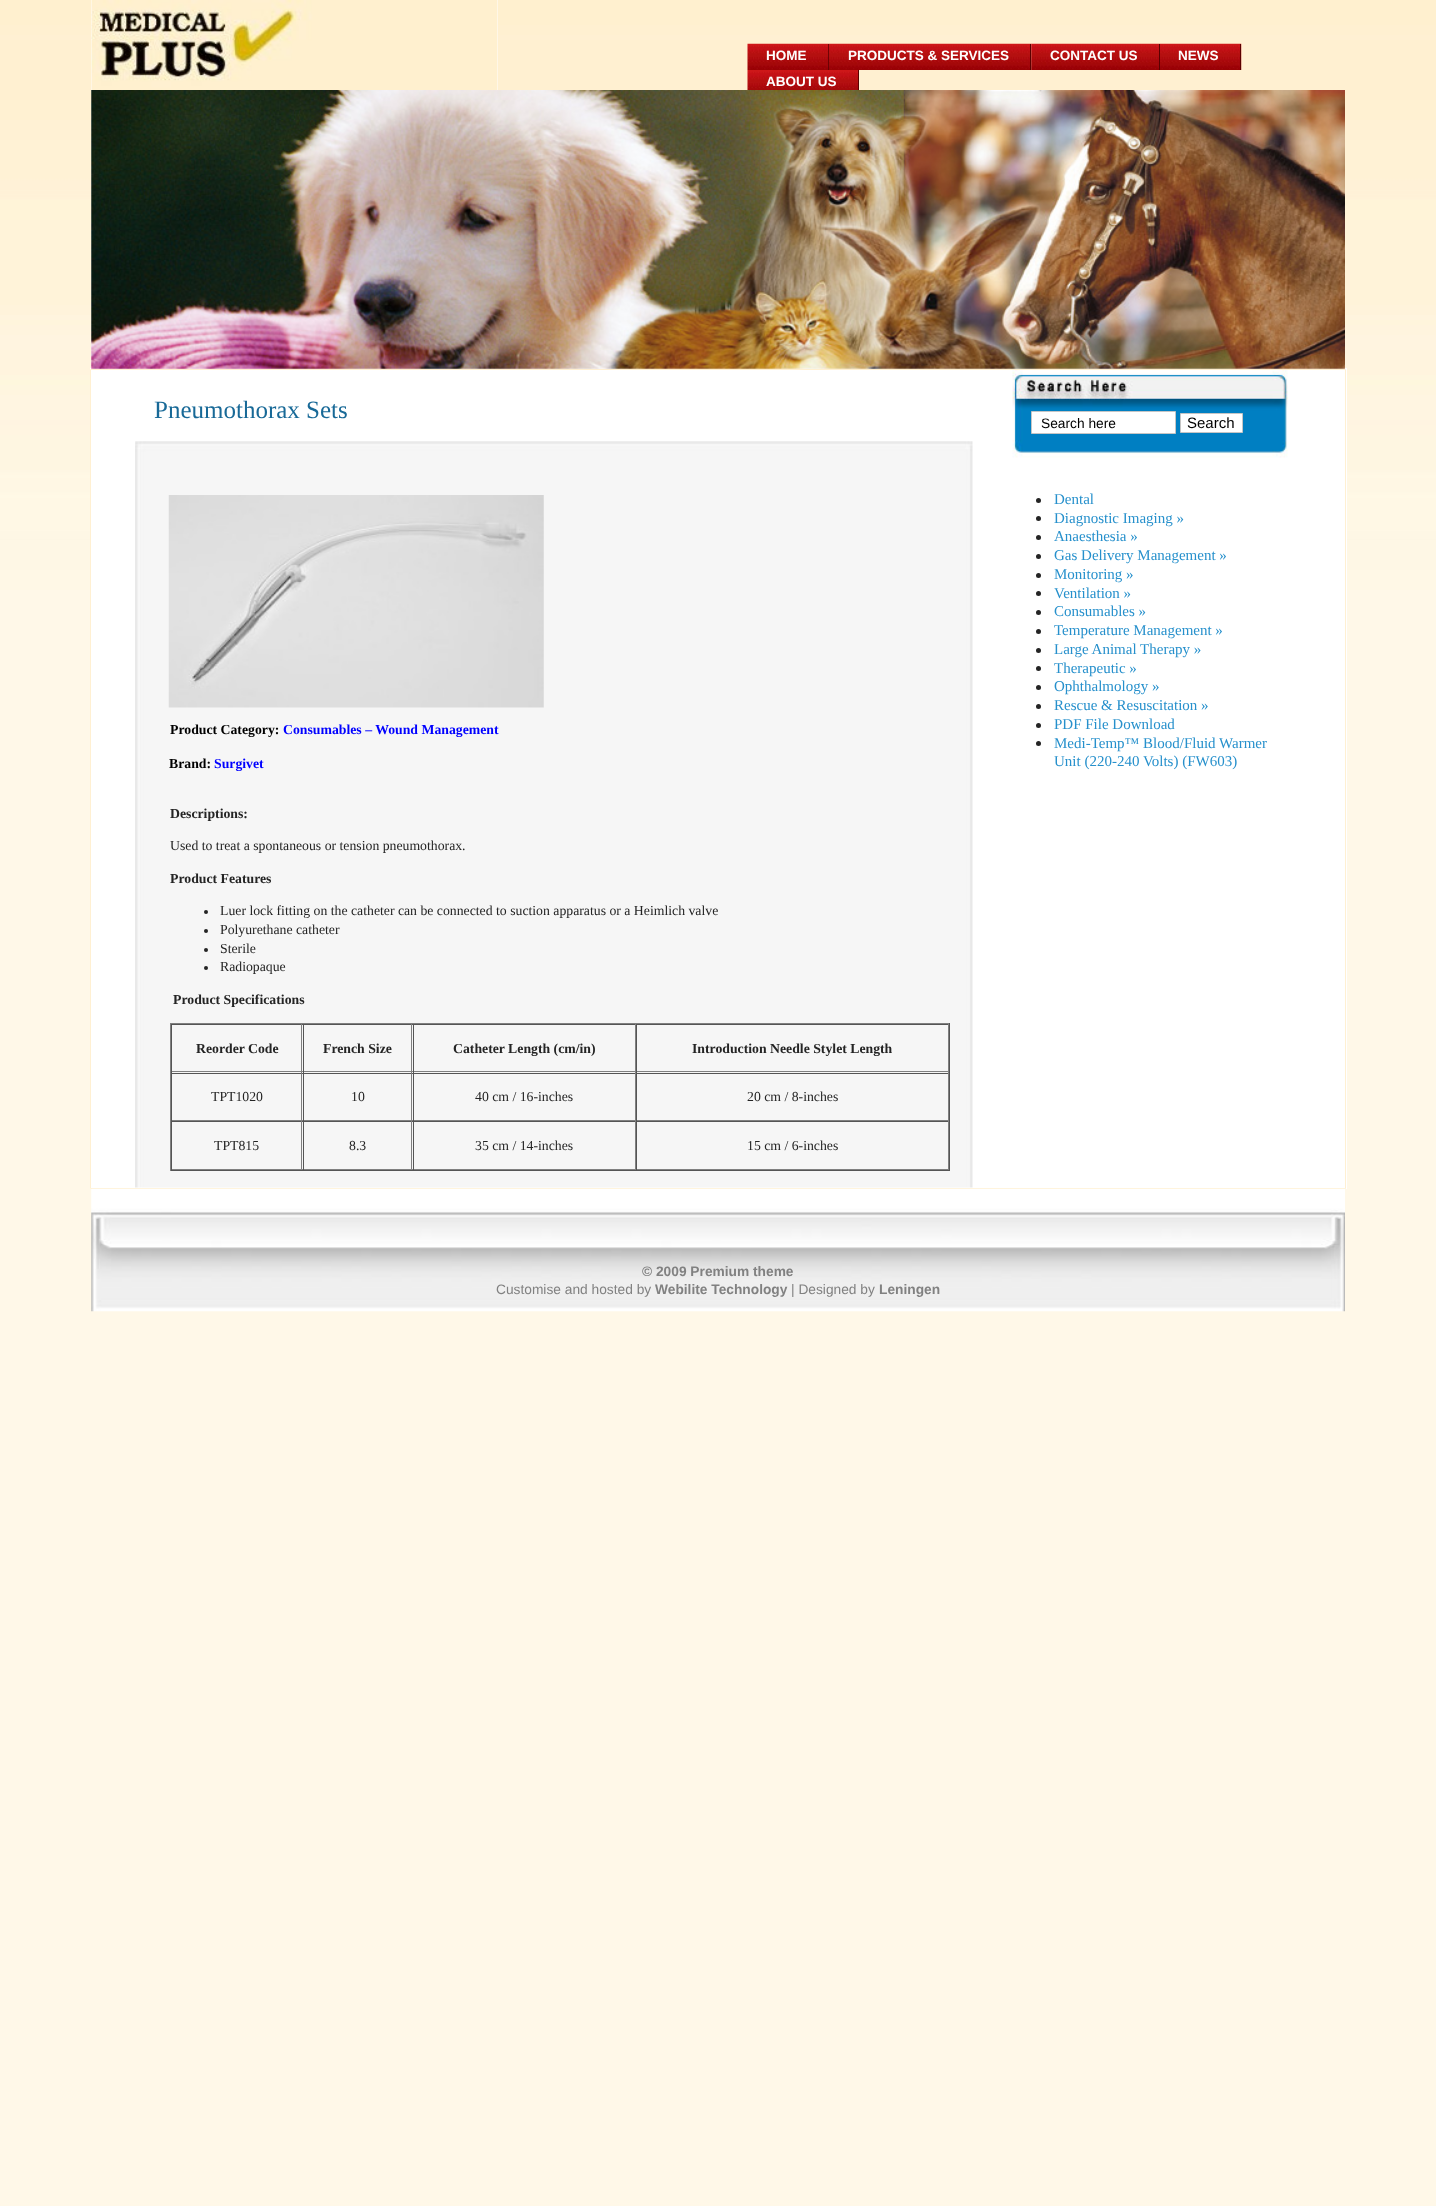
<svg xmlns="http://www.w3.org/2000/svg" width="1436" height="2206">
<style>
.a{font:bold 13.5px Liberation Sans;fill:#fff}
.b{font:25px Liberation Serif;fill:#186997}
.c{font:bold 13.75px Liberation Serif;fill:#000}
.d{font:bold 13.75px Liberation Serif;fill:#00f}
.e{font:bold 13.75px Liberation Serif;fill:#242424}
.f{font:13.75px Liberation Serif;fill:#242424}
.g{font:13.75px Liberation Sans;fill:#000}
.h{font:15px Liberation Sans;fill:#000}
.i{font:15px Liberation Serif;fill:#2690cc}
.j{font:bold 13.75px Liberation Sans;fill:#818181}
.k{font:13.75px Liberation Sans;fill:#818181}
</style>
<rect width="100%" height="100%" fill="#fff"/>
<image href="1.png" x="0" y="0" width="1436" height="2206"/>
<path fill="#fff" d="M91 0h407v90H91z"/>
<image href="2.png" x="91" y="0" width="407" height="90"/>
<image href="3.png" x="747" y="43" width="82" height="27"/>
<path fill="#5a0000" d="M828 44h1v26H828z"/>
<image href="4.png" x="828" y="43" width="204" height="27"/>
<path fill="#5a0000" d="M1030 44h1v26H1030z"/>
<image href="5.png" x="1031" y="43" width="129" height="27"/>
<path fill="#5a0000" d="M1159 44h1v26H1159z"/>
<image href="6.png" x="1160" y="43" width="82" height="27"/>
<path fill="#5a0000" d="M1240 44h1v26H1240z"/>
<image href="7.png" x="747" y="70" width="111" height="20"/>
<path fill="#5a0000" d="M858 70h1v20H858z"/>
<path fill="#fff" d="M91 90h1254v278H91z"/>
<path fill="#fff" d="M90 368h1257v821H90z"/>
<image href="8.png" x="91" y="90" width="1254" height="279"/>
<path fill="none" stroke="#fff0d2" d="M90.5 369.5h1255v819H90.5z"/>
<image href="9.png" x="135" y="441" width="838" height="19"/>
<image href="10.png" x="135" y="460" width="838" height="728"/>
<image href="11.png" x="168" y="495" width="376" height="213"/>
<circle fill="#242424" cx="206" cy="912" r="2"/>
<circle fill="#242424" cx="206" cy="931" r="2"/>
<circle fill="#242424" cx="206" cy="950" r="2"/>
<circle fill="#242424" cx="206" cy="968" r="2"/>
<path fill="#808080" d="M170 1023h780v1H170z"/>
<path fill="#555" d="M949 1023h1v148H949z"/>
<path fill="#555" d="M170 1170h780v1H170z"/>
<path fill="#808080" d="M170 1023h1v148H170z"/>
<path fill="#555" d="M171 1024h778v1H171z"/>
<path fill="#808080" d="M301 1024h1v49H301z"/>
<path fill="#808080" d="M171 1071h132v1H171z"/>
<path fill="#555" d="M171 1024h1v49H171z"/>
<path fill="#808080" d="M411 1024h1v49H411z"/>
<path fill="#808080" d="M303 1071h110v1H303z"/>
<path fill="#555" d="M303 1024h1v49H303z"/>
<path fill="#808080" d="M635 1024h1v49H635z"/>
<path fill="#808080" d="M413 1071h223v1H413z"/>
<path fill="#555" d="M413 1024h1v49H413z"/>
<path fill="#808080" d="M948 1024h1v49H948z"/>
<path fill="#808080" d="M636 1071h313v1H636z"/>
<path fill="#555" d="M636 1024h1v49H636z"/>
<path fill="#555" d="M171 1073h778v1H171z"/>
<path fill="#808080" d="M301 1073h1v48H301z"/>
<path fill="#808080" d="M171 1120h132v1H171z"/>
<path fill="#555" d="M171 1073h1v48H171z"/>
<path fill="#808080" d="M411 1073h1v48H411z"/>
<path fill="#808080" d="M303 1120h110v1H303z"/>
<path fill="#555" d="M303 1073h1v48H303z"/>
<path fill="#808080" d="M635 1073h1v48H635z"/>
<path fill="#808080" d="M413 1120h223v1H413z"/>
<path fill="#555" d="M413 1073h1v48H413z"/>
<path fill="#808080" d="M948 1073h1v48H948z"/>
<path fill="#808080" d="M636 1120h313v1H636z"/>
<path fill="#555" d="M636 1073h1v48H636z"/>
<path fill="#555" d="M171 1121h778v1H171z"/>
<path fill="#808080" d="M301 1121h1v49H301z"/>
<path fill="#808080" d="M171 1169h132v1H171z"/>
<path fill="#555" d="M171 1121h1v49H171z"/>
<path fill="#808080" d="M411 1121h1v49H411z"/>
<path fill="#808080" d="M303 1169h110v1H303z"/>
<path fill="#555" d="M303 1121h1v49H303z"/>
<path fill="#808080" d="M635 1121h1v49H635z"/>
<path fill="#808080" d="M413 1169h223v1H413z"/>
<path fill="#555" d="M413 1121h1v49H413z"/>
<path fill="#808080" d="M948 1121h1v49H948z"/>
<path fill="#808080" d="M636 1169h313v1H636z"/>
<path fill="#555" d="M636 1121h1v49H636z"/>
<image href="12.png" x="1012" y="370" width="276" height="88"/>
<path fill="#fff" stroke="#c5c5c5" d="M1031.5 411.5h144v22H1031.5z"/>
<path fill="#fff" stroke="#c5c5c5" d="M1180.5 413.5h62v19H1180.5z"/>
<circle fill="#242424" cx="1038.5" cy="500.5" r="2.5"/>
<circle fill="#242424" cx="1038.5" cy="518.5" r="2.5"/>
<circle fill="#242424" cx="1038.5" cy="537.5" r="2.5"/>
<circle fill="#242424" cx="1038.5" cy="556.5" r="2.5"/>
<circle fill="#242424" cx="1038.5" cy="575.5" r="2.5"/>
<circle fill="#242424" cx="1038.5" cy="593.5" r="2.5"/>
<circle fill="#242424" cx="1038.5" cy="612.5" r="2.5"/>
<circle fill="#242424" cx="1038.5" cy="631.5" r="2.5"/>
<circle fill="#242424" cx="1038.5" cy="650.5" r="2.5"/>
<circle fill="#242424" cx="1038.5" cy="668.5" r="2.5"/>
<circle fill="#242424" cx="1038.5" cy="687.5" r="2.5"/>
<circle fill="#242424" cx="1038.5" cy="706.5" r="2.5"/>
<circle fill="#242424" cx="1038.5" cy="725.5" r="2.5"/>
<circle fill="#242424" cx="1038.5" cy="743.5" r="2.5"/>
<image href="13.png" x="91" y="1188" width="1254" height="124"/>
<text class="a" x="766" y="60">HOME</text>
<text class="a" x="848" y="60">PRODUCTS &amp; SERVICES</text>
<text class="a" x="1050" y="60">CONTACT US</text>
<text class="a" x="1178" y="60">NEWS</text>
<text class="a" x="766" y="86">ABOUT US</text>
<text class="b" x="154" y="418">Pneumothorax Sets</text>
<text class="c" x="170" y="734">Product Category:</text>
<text class="d" x="283" y="734">Consumables – Wound Management</text>
<text class="c" x="169" y="768">Brand:</text>
<text class="d" x="214" y="768">Surgivet</text>
<text class="e" x="170" y="818">Descriptions:</text>
<text class="f" x="170" y="850">Used to treat a spontaneous or tension pneumothorax.</text>
<text class="e" x="170" y="883">Product Features</text>
<text class="f" x="220" y="915">Luer lock fitting on the catheter can be connected to suction apparatus or a Heimlich valve</text>
<text class="f" x="220" y="934">Polyurethane catheter</text>
<text class="f" x="220" y="953">Sterile</text>
<text class="f" x="220" y="971">Radiopaque</text>
<text class="e" x="173" y="1004">Product Specifications</text>
<text class="e" x="196" y="1053">Reorder Code</text>
<text class="e" x="323" y="1053">French Size</text>
<text class="e" x="453" y="1053">Catheter Length (cm/in)</text>
<text class="e" x="692" y="1053">Introduction Needle Stylet Length</text>
<text class="f" x="211" y="1101">TPT1020</text>
<text class="f" x="351" y="1101">10</text>
<text class="f" x="475" y="1101">40 cm / 16-inches</text>
<text class="f" x="747" y="1101">20 cm / 8-inches</text>
<text class="f" x="214" y="1150">TPT815</text>
<text class="f" x="349" y="1150">8.3</text>
<text class="f" x="475" y="1150">35 cm / 14-inches</text>
<text class="f" x="747" y="1150">15 cm / 6-inches</text>
<text class="g" x="1041" y="428">Search here</text>
<text class="h" x="1187" y="428">Search</text>
<text class="i" x="1054" y="504">Dental</text>
<text class="i" x="1054" y="523">Diagnostic Imaging »</text>
<text class="i" x="1054" y="541">Anaesthesia »</text>
<text class="i" x="1054" y="560">Gas Delivery Management »</text>
<text class="i" x="1054" y="579">Monitoring »</text>
<text class="i" x="1054" y="598">Ventilation »</text>
<text class="i" x="1054" y="616">Consumables »</text>
<text class="i" x="1054" y="635">Temperature Management »</text>
<text class="i" x="1054" y="654">Large Animal Therapy »</text>
<text class="i" x="1054" y="673">Therapeutic »</text>
<text class="i" x="1054" y="691">Ophthalmology »</text>
<text class="i" x="1054" y="710">Rescue &amp; Resuscitation »</text>
<text class="i" x="1054" y="729">PDF File Download</text>
<text class="i" x="1054" y="748">Medi-Temp™ Blood/Fluid Warmer</text>
<text class="i" x="1054" y="766">Unit (220-240 Volts) (FW603)</text>
<text class="j" x="642" y="1276">© 2009 Premium theme</text>
<text class="k" x="496" y="1294">Customise and hosted by</text>
<text class="j" x="655" y="1294">Webilite Technology</text>
<text class="k" x="791" y="1294">| Designed by</text>
<text class="j" x="879" y="1294">Leningen</text>
</svg>
